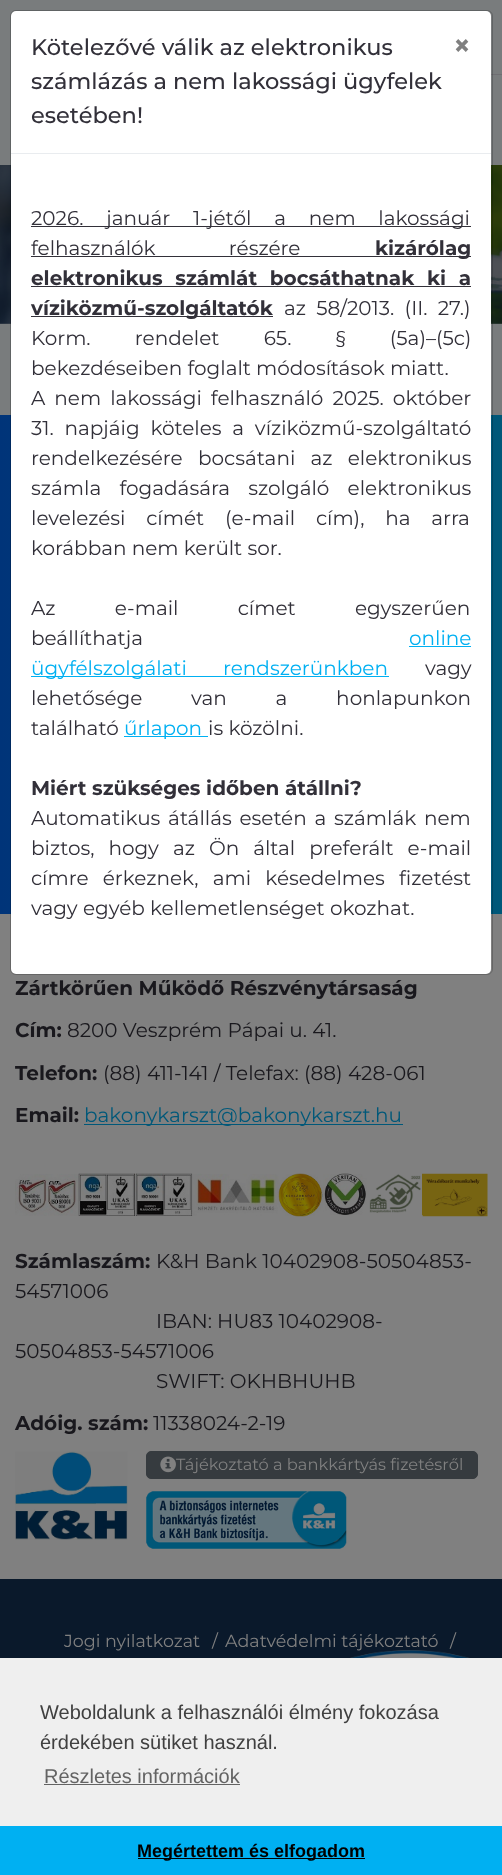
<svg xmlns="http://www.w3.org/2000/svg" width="502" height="1875">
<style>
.a{font:500 22.5px Montserrat;fill:#323039}
.b{font:bold 30px Montserrat;fill:#808080}
.c{font:20px Montserrat;fill:#323039}
.d{font:bold 20px Montserrat;fill:#323039}
.e{font:20px Montserrat;fill:#00b0f2}
.f{font:bold 20px Montserrat;fill:#19181d}
.g{font:20px Montserrat;fill:#19181d}
.h{font:20px Montserrat;fill:#005879}
.i{font:16.25px Montserrat;fill:#808080}
.j{font:17.5px Montserrat;fill:#808080}
.k{font:20px Liberation Sans;fill:#404040}
.l{font:20px Liberation Sans;fill:#636363}
.m{font:bold 18px Liberation Sans;fill:#000}
</style>
<defs>
<linearGradient id="g1" gradientUnits="userSpaceOnUse" x1="0" y1="664" x2="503" y2="664"><stop offset="0" stop-color="#003479"/><stop offset="1" stop-color="#005879"/></linearGradient>
</defs>
<rect width="100%" height="100%" fill="#797c7d"/>
<image href="1.png" x="0" y="165" width="502" height="159"/>
<path fill="#808080" d="M0 914h502v665H0z"/>
<path fill="url(#g1)" d="M0 415h502v499H0z"/>
<rect fill="#fff" x="11" y="11" width="480" height="963" rx="5"/>
<path fill="#6f6e72" d="M491 74h11v1H491z"/>
<rect fill="none" stroke="#00000033" x="10.5" y="10.5" width="482" height="964" rx="5.5"/>
<path fill="#e9ecef" d="M11 153h480v1H11z"/>
<path fill="#323039" d="M31 226h440v1H31z"/>
<path fill="#323039" d="M31 256h440v1H31z"/>
<path fill="#323039" d="M31 286h440v1H31z"/>
<path fill="#323039" d="M31 316h242v1H31z"/>
<path fill="#00b0f2" d="M409 646h62v1H409z"/>
<path fill="#00b0f2" d="M31 676h358v1H31z"/>
<path fill="#00b0f2" d="M124 736h84v1H124z"/>
<path fill="#005879" d="M84 1124h319v1H84z"/>
<image href="2.png" x="15" y="1173" width="473" height="44"/>
<image href="3.png" x="15" y="1451" width="113" height="89"/>
<rect fill="#363b3f" stroke="#363b3f" x="146.5" y="1451.5" width="331" height="27" rx="4.5"/>
<image href="4.png" x="160" y="1456" width="16" height="17"/>
<image href="5.png" x="146" y="1491" width="201" height="58"/>
<path fill="#0a192b" d="M0 1579h502v79H0z"/>
<path fill="#efefef" d="M0 1658h502v168H0z"/>
<path fill="#636363" d="M44 1784h196v1H44z"/>
<path fill="#00b0f2" d="M0 1826h502v49H0z"/>
<path fill="#000" d="M138 1858h227v1H138z"/>
<text class="a" x="31" y="55">Kötelezővé válik az elektronikus</text>
<text class="a" x="31" y="89">számlázás a nem lakossági ügyfelek</text>
<text class="a" x="31" y="123">esetében!</text>
<text class="b" x="453" y="56">×</text>
<text class="c" x="31" y="225" word-spacing="17.5">2026. január 1-jétől a nem lakossági</text>
<text class="c" x="31" y="255" word-spacing="68">felhasználók részére</text>
<text class="d" x="375" y="255">kizárólag</text>
<text class="d" x="31" y="285" word-spacing="7">elektronikus számlát bocsáthatnak ki a</text>
<text class="d" x="31" y="315">víziközmű-szolgáltatók</text>
<text class="c" x="284" y="315" word-spacing="5">az 58/2013. (II. 27.)</text>
<text class="c" x="31" y="345" word-spacing="39">Korm. rendelet 65. § (5a)–(5c)</text>
<text class="c" x="31" y="375">bekezdéseiben foglalt módosítások miatt.</text>
<text class="c" x="31" y="405" word-spacing="3.75">A nem lakossági felhasználó 2025. október</text>
<text class="c" x="31" y="435" word-spacing="5.5">31. napjáig köteles a víziközmű-szolgáltató</text>
<text class="c" x="31" y="465" word-spacing="10">rendelkezésére bocsátani az elektronikus</text>
<text class="c" x="31" y="495" word-spacing="13">számla fogadására szolgáló elektronikus</text>
<text class="c" x="31" y="525" word-spacing="15.5">levelezési címét (e-mail cím), ha arra</text>
<text class="c" x="31" y="555">korábban nem került sor.</text>
<text class="c" x="31" y="615" word-spacing="54">Az e-mail címet egyszerűen</text>
<text class="c" x="31" y="645">beállíthatja</text>
<text class="e" x="409" y="645">online</text>
<text class="e" x="31" y="675">ügyfélszolgálati</text>
<text class="e" x="223" y="675">rendszerünkben</text>
<text class="c" x="425" y="675">vagy</text>
<text class="c" x="31" y="705" word-spacing="43.5">lehetősége van a honlapunkon</text>
<text class="c" x="31" y="735">található</text>
<text class="e" x="124" y="735">űrlapon</text>
<text class="c" x="208" y="735">is közölni.</text>
<text class="d" x="31" y="795">Miért szükséges időben átállni?</text>
<text class="c" x="31" y="825" word-spacing="2.5">Automatikus átállás esetén a számlák nem</text>
<text class="c" x="31" y="855" word-spacing="8.75">biztos, hogy az Ön által preferált e-mail</text>
<text class="c" x="31" y="885" word-spacing="9">címre érkeznek, ami késedelmes fizetést</text>
<text class="c" x="31" y="915">vagy egyéb kellemetlenséget okozhat.</text>
<text class="f" x="15" y="995">Zártkörűen Működő Részvénytársaság</text>
<text class="f" x="15" y="1037">Cím:</text>
<text class="g" x="67" y="1037">8200 Veszprém Pápai u. 41.</text>
<text class="f" x="15" y="1080">Telefon:</text>
<text class="g" x="103" y="1080">(88) 411-141 / Telefax: (88) 428-061</text>
<text class="f" x="15" y="1122">Email:</text>
<text class="h" x="84" y="1122">bakonykarszt@bakonykarszt.hu</text>
<text class="f" x="15" y="1268">Számlaszám:</text>
<text class="g" x="156" y="1268">K&amp;H Bank 10402908-50504853-</text>
<text class="g" x="15" y="1298">54571006</text>
<text class="g" x="156" y="1328">IBAN: HU83 10402908-</text>
<text class="g" x="15" y="1358">50504853-54571006</text>
<text class="g" x="156" y="1388">SWIFT: OKHBHUHB</text>
<text class="f" x="15" y="1430">Adóig. szám:</text>
<text class="g" x="153" y="1430">11338024-2-19</text>
<text class="i" x="176" y="1470">Tájékoztató a bankkártyás fizetésről</text>
<text class="j" x="64" y="1647">Jogi nyilatkozat</text>
<text class="j" x="212" y="1647">/</text>
<text class="j" x="225" y="1647">Adatvédelmi tájékoztató</text>
<text class="j" x="450" y="1647">/</text>
<image href="6.png" x="350" y="1650" width="120" height="8"/>
<text class="k" x="40" y="1719">Weboldalunk a felhasználói élmény fokozása</text>
<text class="k" x="40" y="1749">érdekében sütiket használ.</text>
<text class="l" x="44" y="1783">Részletes információk</text>
<text class="m" x="137" y="1857">Megértettem és elfogadom</text>
</svg>
